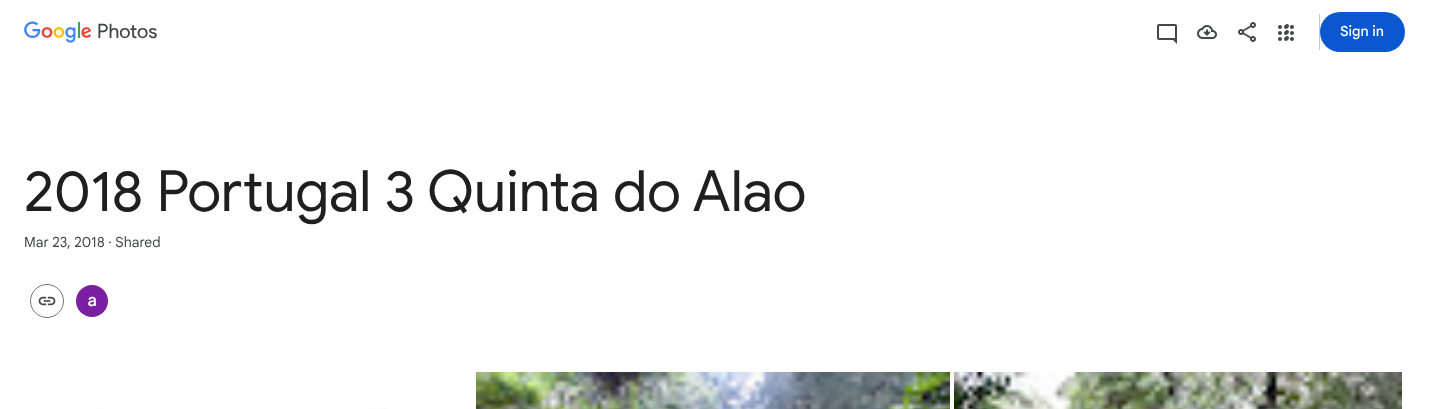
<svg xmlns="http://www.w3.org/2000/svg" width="1441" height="409">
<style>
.a{font:20px Product Sans;fill:#444746}
.b{font:57px Google Sans;fill:#1f1f1f}
.c{font:14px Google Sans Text;fill:#444746}
.d{font:500 14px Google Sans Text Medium;fill:#fff}
</style>
<rect width="100%" height="100%" fill="#fff"/>
<image href="1.png" x="24" y="21" width="68" height="22"/>
<image href="2.png" x="1157" y="24" width="20" height="20"/>
<image href="3.png" x="1197" y="25" width="20" height="14"/>
<image href="4.png" x="1238" y="22" width="18" height="20"/>
<image href="5.png" x="1285" y="24" width="4" height="16"/>
<path fill="#c4c7c5" d="M1319 14h1v36H1319z"/>
<circle fill="none" stroke="#747775" cx="47" cy="301" r="16.5"/>
<image href="6.png" x="38" y="296" width="18" height="10"/>
<image href="7.png" x="76" y="285" width="32" height="32"/>
<image href="8.png" x="95" y="408" width="292" height="1"/>
<image href="9.png" x="476" y="372" width="474" height="37"/>
<image href="10.png" x="954" y="372" width="448" height="37"/>
<image href="11.png" x="1278" y="25" width="16" height="16"/>
<rect fill="#0b57d0" x="1320" y="12" width="85" height="40" rx="20"/>
<text class="a" x="97" y="38">Photos</text>
<text class="b" x="24" y="211">2018 Portugal 3 Quinta do Alao</text>
<text class="c" x="24" y="247">Mar 23, 2018 · Shared</text>
<text class="d" x="1340" y="36">Sign in</text>
</svg>
